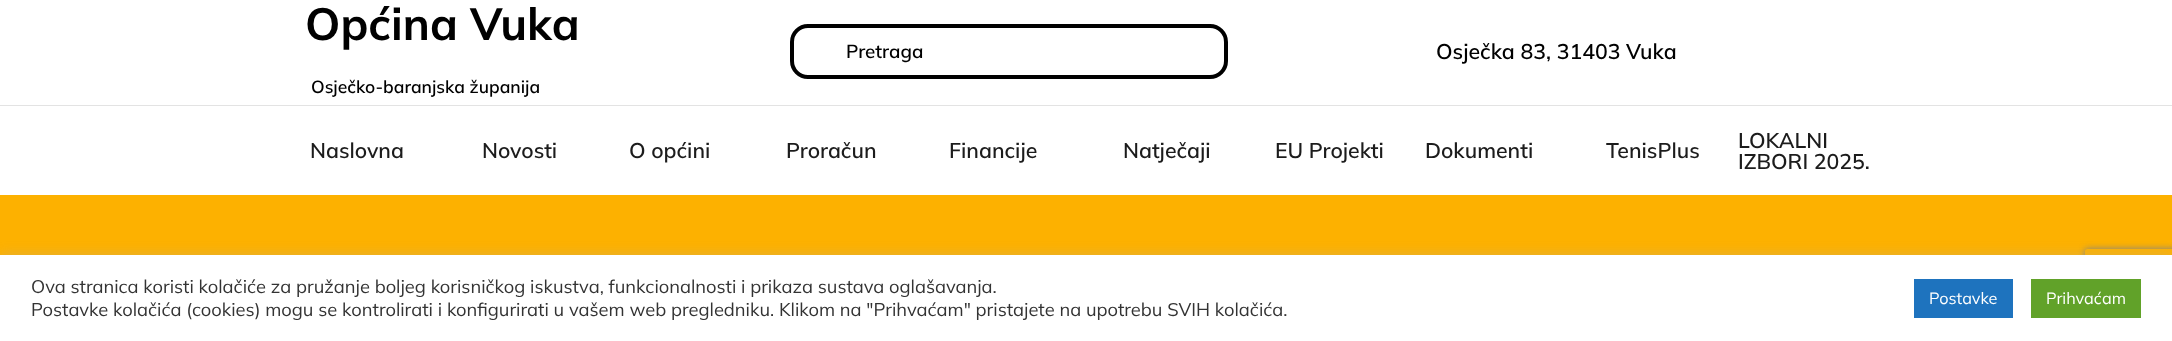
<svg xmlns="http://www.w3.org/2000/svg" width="2172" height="341">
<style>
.a{font:bold 45px Mulish;fill:#000}
.b{font:600 17.5px Mulish;fill:#000}
.c{font:600 18.75px Mulish;fill:#000}
.d{font:600 21.25px Mulish;fill:#000}
.e{font:600 21.25px Mulish;fill:#1c1c1c}
.f{font:18.33px Mulish;fill:#333}
.g{font:16.25px Mulish;fill:#fff}
</style>
<defs>
<clipPath id="clip1"><path d="M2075 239h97v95h-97zm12.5 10h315c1.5 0 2.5 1 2.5 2.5v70c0 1.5-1 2.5-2.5 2.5h-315c-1.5 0-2.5-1-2.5-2.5v-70c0-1.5 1-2.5 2.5-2.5z" clip-rule="evenodd"/></clipPath>
</defs>
<rect width="100%" height="100%" fill="#fff"/>
<rect fill="none" stroke="#000" stroke-width="4" x="792" y="26" width="434" height="51" rx="16"/>
<path fill="#e3e3e3" d="M0 105h2172v1H0z"/>
<path fill="#fdb100" d="M0 195h2172v60H0z"/>
<g clip-path="url(#clip1)">
<rect fill="#808080" filter="blur(3px)" x="2085" y="249" width="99" height="75" rx="2.5"/>
</g>
<path fill="#acabab4d" filter="blur(6px)" d="M0 254h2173v86H0z"/>
<path fill="#fff" d="M0 255h2172v86H0z"/>
<path fill="#1e73be" d="M1914 279h99v39H1914z"/>
<path fill="#61a229" d="M2031 279h110v39H2031z"/>
<text class="a" x="305" y="40">Općina Vuka</text>
<text class="b" x="311" y="93">Osječko-baranjska županija</text>
<text class="c" x="846" y="58">Pretraga</text>
<text class="d" x="1436" y="59">Osječka 83, 31403 Vuka</text>
<text class="e" x="310" y="158">Naslovna</text>
<text class="e" x="482" y="158">Novosti</text>
<text class="e" x="629" y="158">O općini</text>
<text class="e" x="786" y="158">Proračun</text>
<text class="e" x="949" y="158">Financije</text>
<text class="e" x="1123" y="158">Natječaji</text>
<text class="e" x="1275" y="158">EU Projekti</text>
<text class="e" x="1425" y="158">Dokumenti</text>
<text class="e" x="1606" y="158">TenisPlus</text>
<text class="e" x="1738" y="148">LOKALNI</text>
<text class="e" x="1738" y="169">IZBORI 2025.</text>
<text class="f" x="31" y="293">Ova stranica koristi kolačiće za pružanje boljeg korisničkog iskustva, funkcionalnosti i prikaza sustava oglašavanja.</text>
<text class="f" x="31" y="316">Postavke kolačića (cookies) mogu se kontrolirati i konfigurirati u vašem web pregledniku. Klikom na "Prihvaćam" pristajete na upotrebu SVIH kolačića.</text>
<text class="g" x="1929" y="304">Postavke</text>
<text class="g" x="2046" y="304">Prihvaćam</text>
</svg>
